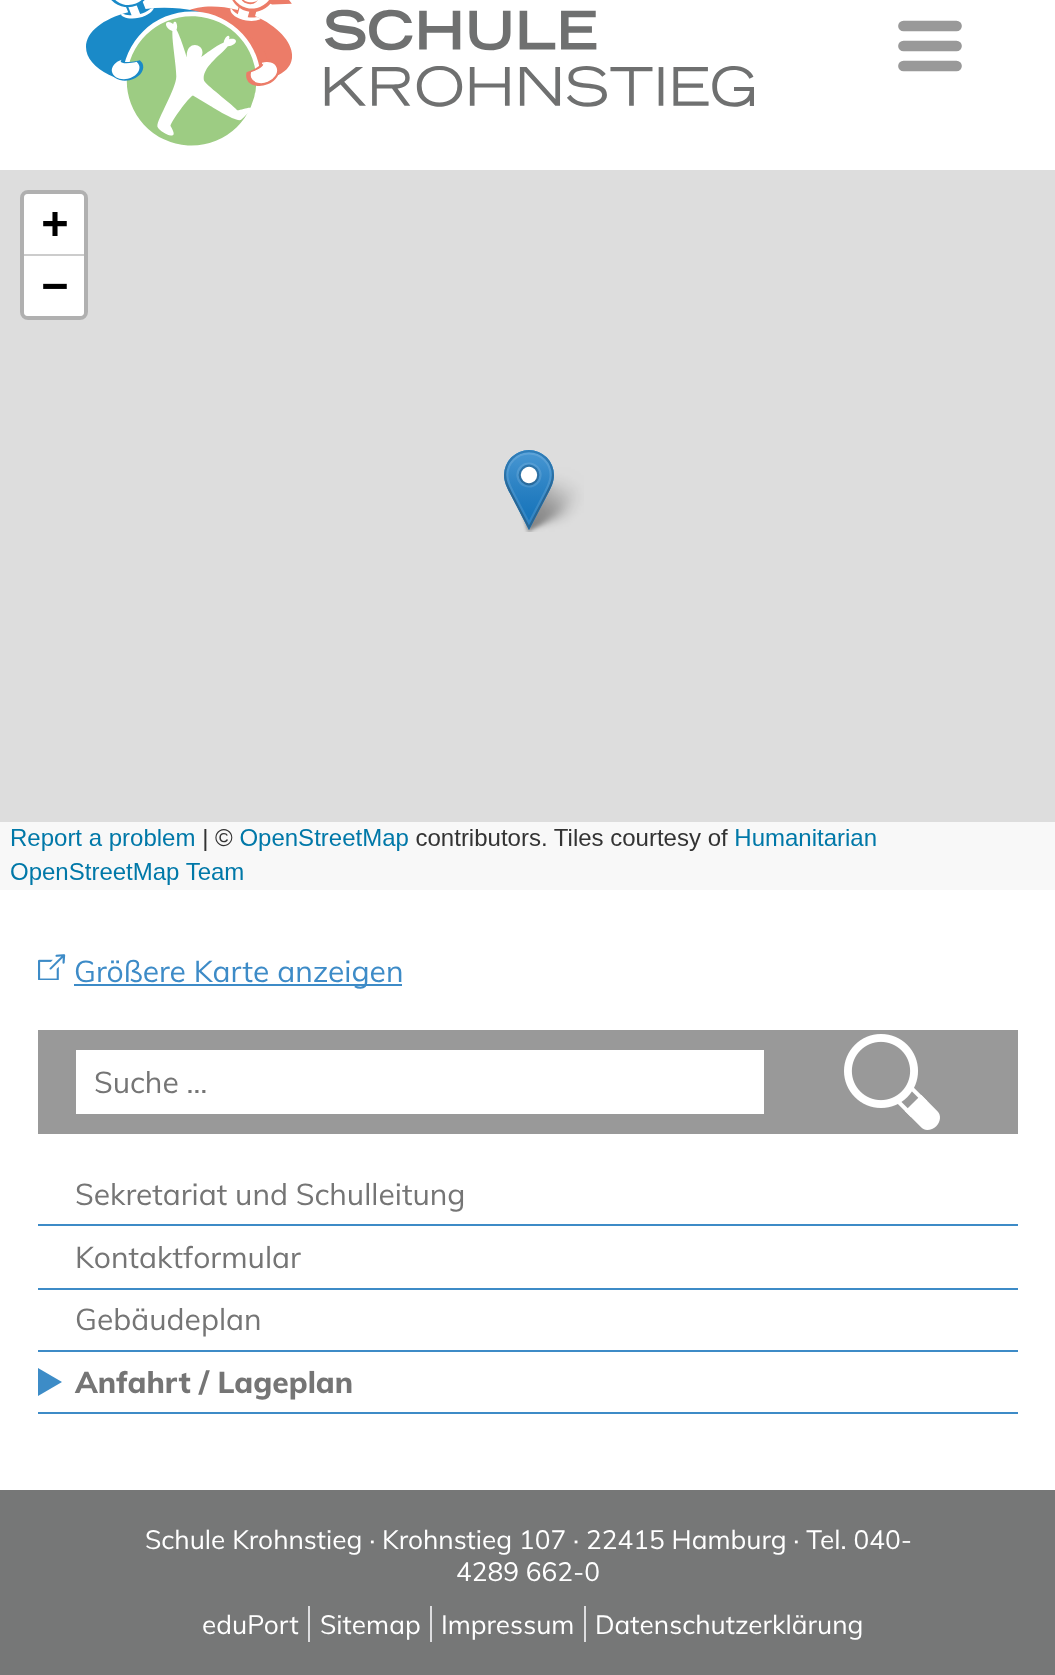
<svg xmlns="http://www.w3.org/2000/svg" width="1055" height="1675">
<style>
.a{font:30px Muli;fill:#3d8bc7}
.b{font:30px Muli;fill:#757575}
.c{font:800 30px Muli;fill:#757575}
.d{font:26.25px Muli;fill:#fff}
</style>
<rect width="100%" height="100%" fill="#fff"/>
<image href="1.png" x="86" y="0" width="668" height="146"/>
<path fill="none" stroke="#999" stroke-width="10.7" stroke-linecap="round" d="M903.5 26h53"/>
<path fill="none" stroke="#999" stroke-width="10.7" stroke-linecap="round" d="M903.5 46h53"/>
<path fill="none" stroke="#999" stroke-width="10.7" stroke-linecap="round" d="M903.5 66h53"/>
<image href="2.png" x="0" y="170" width="1055" height="720"/>
<image href="3.png" x="38" y="954" width="28" height="26"/>
<path fill="#3d8bc7" d="M74 984h328v2H74z"/>
<path fill="#999" d="M38 1030h980v104H38z"/>
<path fill="#fff" d="M76 1050h688v64H76z"/>
<image href="4.png" x="844" y="1034" width="96" height="96"/>
<path fill="#3d8bc7" d="M38 1224h980v2H38z"/>
<path fill="#3d8bc7" d="M38 1288h980v2H38z"/>
<path fill="#3d8bc7" d="M38 1350h980v2H38z"/>
<path fill="#3d8bc7" d="M38 1412h980v2H38z"/>
<path fill="#3d8cc7" d="M38 1368v28l24-14z"/>
<path fill="#767777" d="M0 1490h1055v185H0z"/>
<path fill="#dddddf" d="M308 1606h2v36H308z"/>
<path fill="#dddddf" d="M430 1606h2v36H430z"/>
<path fill="#dddddf" d="M584 1606h2v36H584z"/>
<text class="a" x="74" y="982">Größere Karte anzeigen</text>
<text class="b" x="94" y="1093">Suche …</text>
<text class="b" x="75" y="1205">Sekretariat und Schulleitung</text>
<text class="b" x="75" y="1268">Kontaktformular</text>
<text class="b" x="75" y="1330">Gebäudeplan</text>
<text class="c" x="75" y="1393">Anfahrt / Lageplan</text>
<text class="d" x="145" y="1549">Schule Krohnstieg · Krohnstieg 107 · 22415 Hamburg · Tel. 040-</text>
<text class="d" x="456" y="1581">4289 662-0</text>
<text class="d" x="202" y="1634">eduPort</text>
<text class="d" x="320" y="1634">Sitemap</text>
<text class="d" x="441" y="1634">Impressum</text>
<text class="d" x="595" y="1634">Datenschutzerklärung</text>
</svg>
